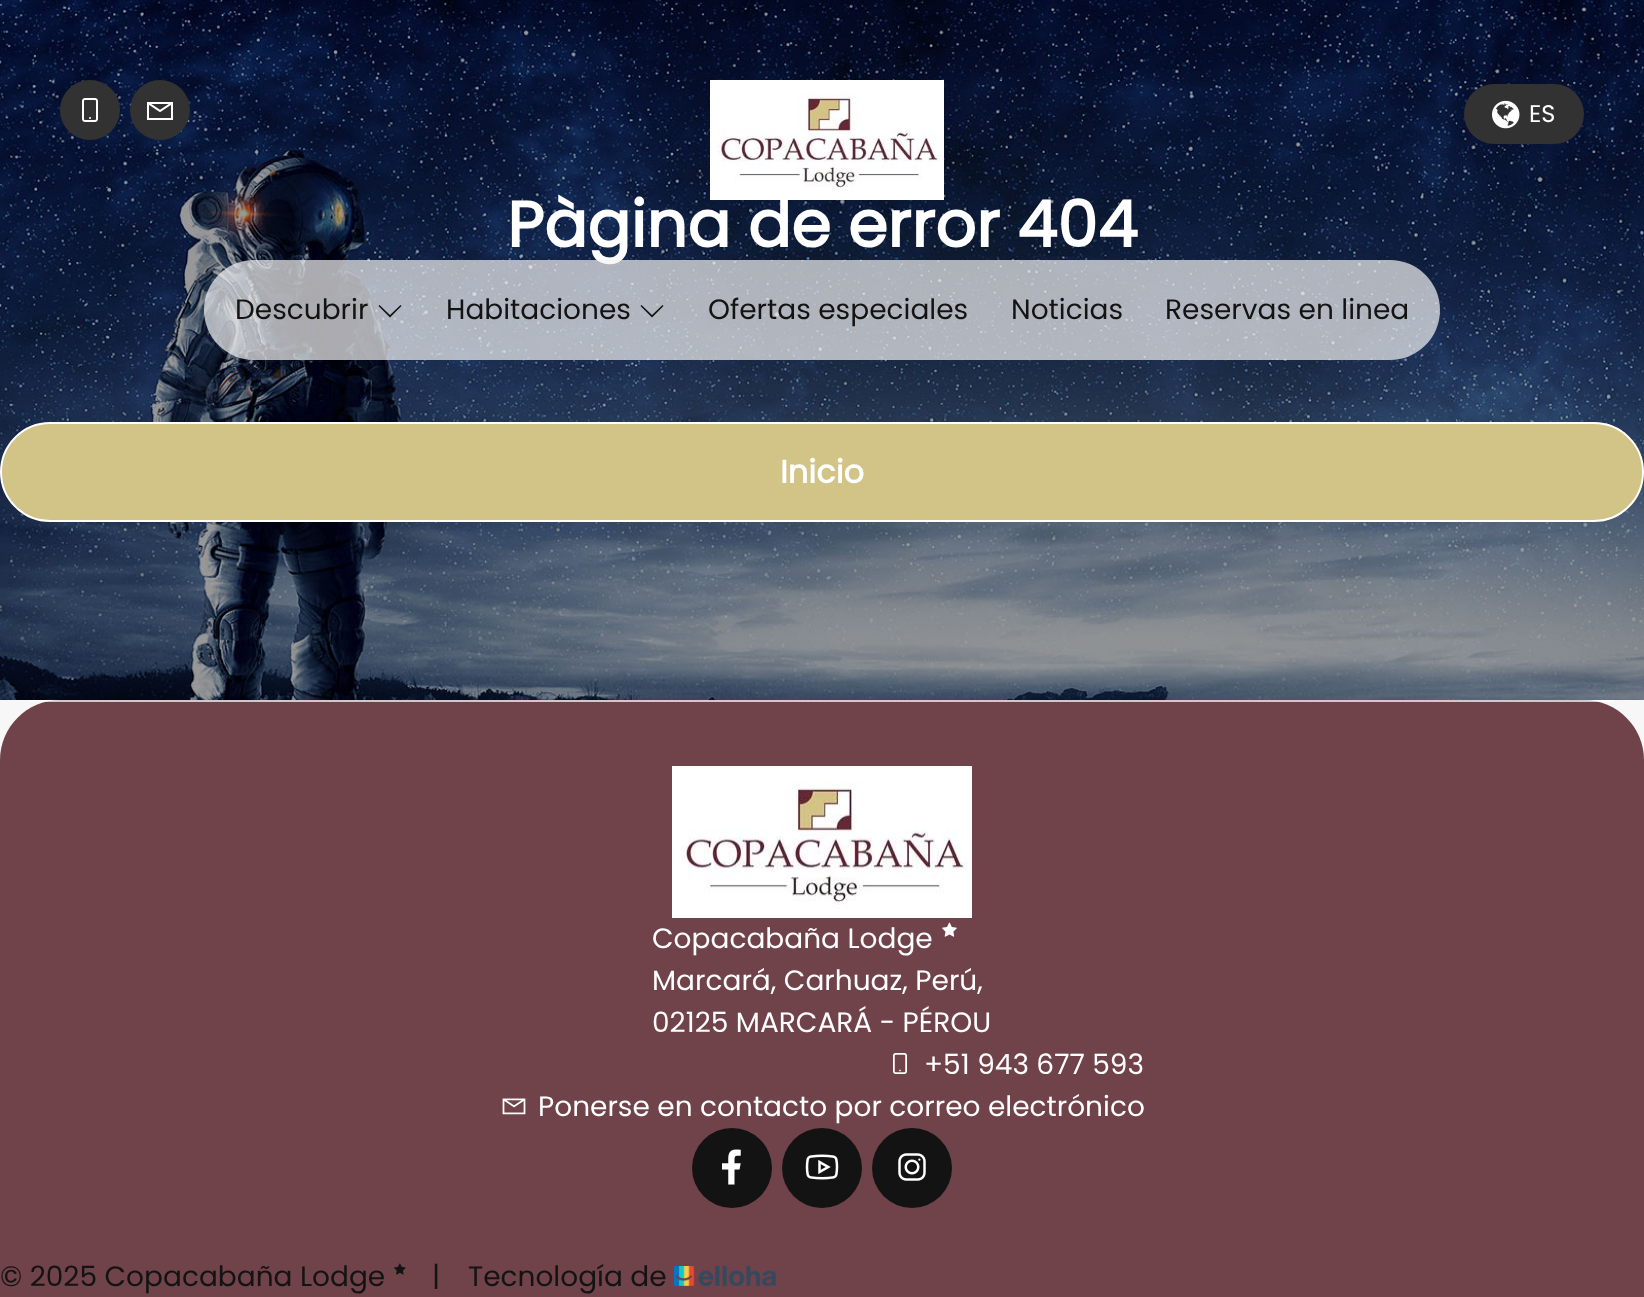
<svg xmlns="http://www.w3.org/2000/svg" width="1644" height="1297">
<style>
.a{font:24px Poppins;fill:#fff}
.b{font:bold 64px Poppins;fill:#fff}
.c{font:28px Poppins;fill:#131313}
.d{font:bold 32px Poppins;fill:#fff}
.e{font:28px Poppins;fill:#fff}
</style>
<rect width="100%" height="100%" fill="#f7f7f7"/>
<image href="1.png" x="0" y="0" width="1644" height="700"/>
<circle fill="#323232" cx="90" cy="110" r="30"/>
<image href="2.png" x="82" y="98" width="16" height="24"/>
<circle fill="#323232" cx="160" cy="110" r="30"/>
<image href="3.png" x="147" y="102" width="26" height="18"/>
<rect fill="#323232" x="1464" y="84" width="120" height="60" rx="30"/>
<image href="5.png" x="1492" y="100" width="28" height="29"/>
<rect fill="#d2c487" stroke="#fff" stroke-width="2" x="1" y="423" width="1642" height="98" rx="49"/>
<path fill="#70424a" d="M60 700h1524c33 0 60 27 60 60v496h-1644v-496c0-33 27-60 60-60z"/>
<path fill="#ffffffb3" d="M30 700h1584v2H30z"/>
<image href="6.png" x="672" y="766" width="300" height="152"/>
<image href="7.png" x="942" y="922" width="15" height="15"/>
<image href="8.png" x="893" y="1053" width="14" height="21"/>
<image href="9.png" x="502" y="1098" width="24" height="17"/>
<circle fill="#131313" cx="732" cy="1168" r="40"/>
<image href="10.png" x="722" y="1149" width="19" height="36"/>
<circle fill="#131313" cx="822" cy="1168" r="40"/>
<image href="11.png" x="805" y="1154" width="34" height="26"/>
<circle fill="#131313" cx="912" cy="1168" r="40"/>
<image href="12.png" x="898" y="1153" width="28" height="28"/>
<path fill="#70424a" d="M0 1256h1644v41H0z"/>
<image href="13.png" x="394" y="1263" width="12" height="12"/>
<image href="14.png" x="674" y="1266" width="102" height="20"/>
<text class="a" x="1529" y="122">ES</text>
<text class="b" x="507" y="247">Pàgina de error 404</text>
<rect fill="#f3f3f3b3" x="204" y="260" width="1236" height="100" rx="50"/>
<path fill="#131313" d="M641.5 305l-1 1l11.5 11.5l11.5-11.5l-1-1l-10.5 10z"/>
<text class="c" x="446" y="319">Habitaciones</text>
<path fill="#131313" d="M379.5 305l-1 1l11.5 11.5l11.5-11.5l-1-1l-10.5 10z"/>
<text class="c" x="235" y="319">Descubrir</text>
<text class="c" x="1165" y="319">Reservas en linea</text>
<text class="c" x="1011" y="319">Noticias</text>
<text class="c" x="708" y="319">Ofertas especiales</text>
<image href="4.png" x="710" y="80" width="234" height="120"/>
<text class="d" x="780" y="483">Inicio</text>
<text class="e" x="652" y="948">Copacabaña Lodge</text>
<text class="e" x="652" y="990">Marcará, Carhuaz, Perú,</text>
<text class="e" x="652" y="1032">02125 MARCARÁ - PÉROU</text>
<text class="e" x="924" y="1074">+51 943 677 593</text>
<text class="e" x="538" y="1116">Ponerse en contacto por correo electrónico</text>
<text class="c" x="0" y="1286">© 2025 Copacabaña Lodge</text>
<text class="c" x="432" y="1286">|</text>
<text class="c" x="468" y="1286">Tecnología de</text>
</svg>
